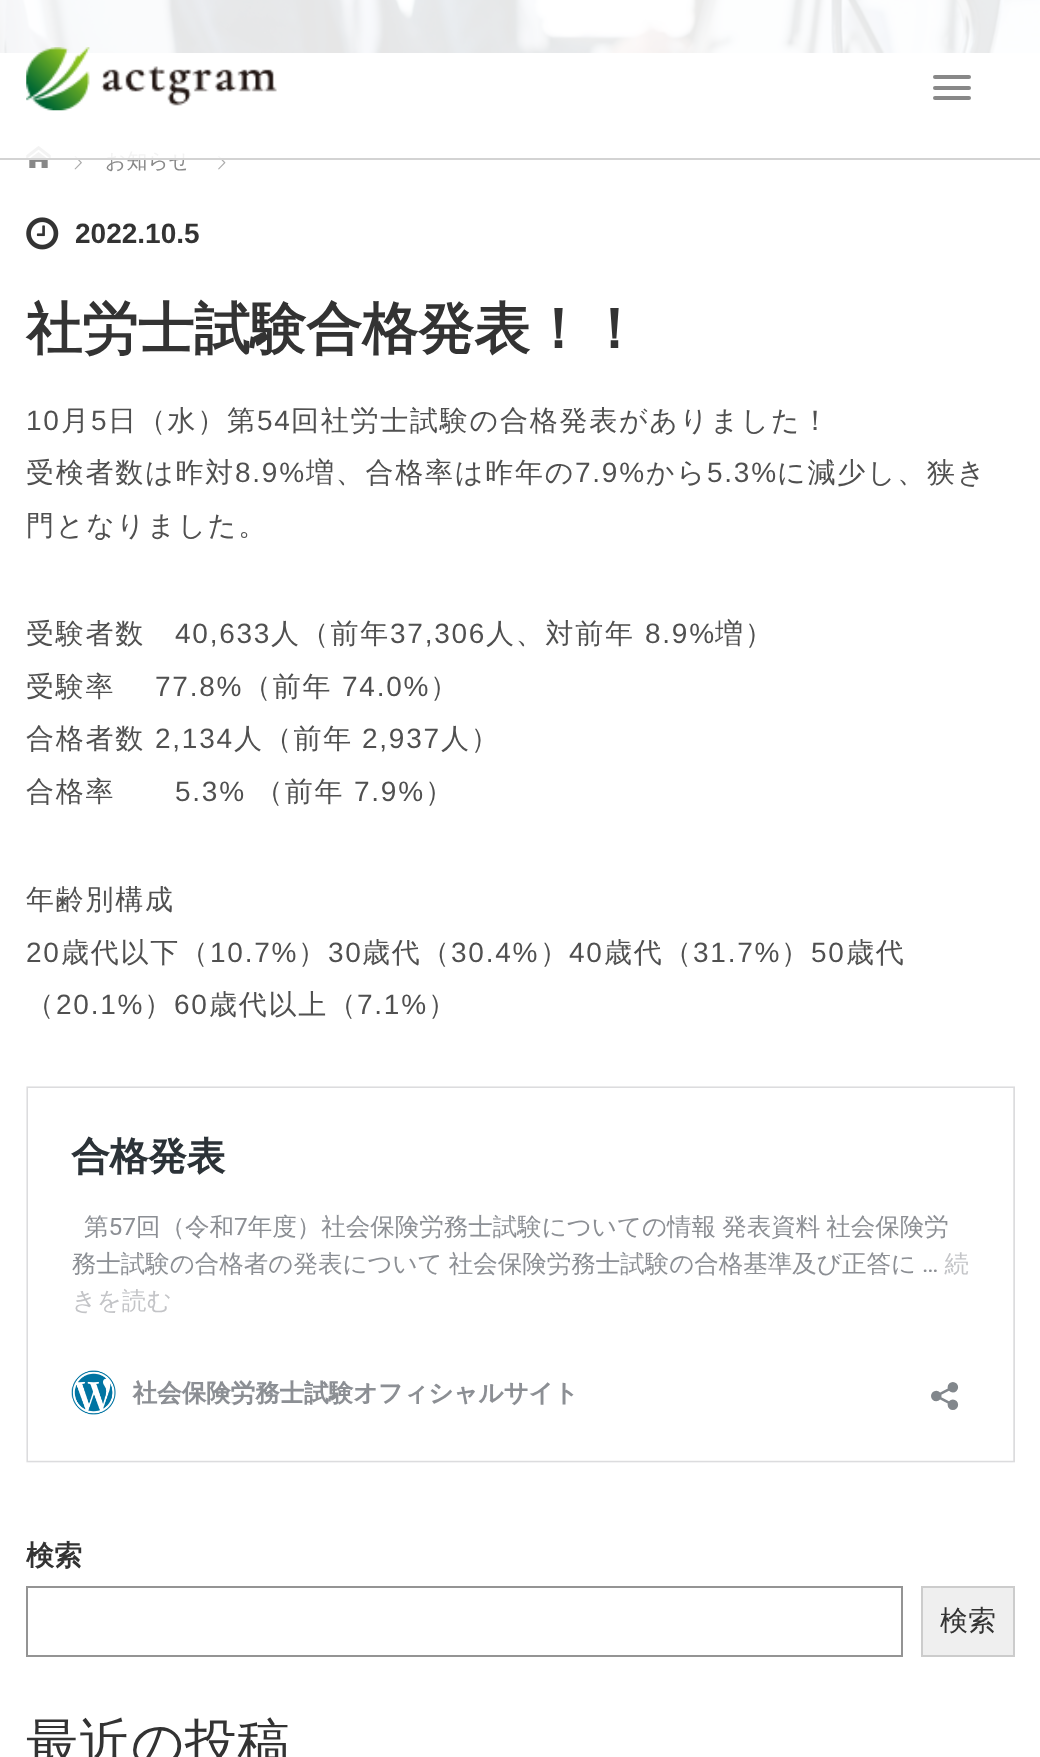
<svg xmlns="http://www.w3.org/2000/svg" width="1040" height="1757">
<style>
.a{font:500 21px WenQuanYi Zen Hei;fill:#888}
.b{font:bold 28px Liberation Sans;fill:#333}
.c{font:bold 56px WenQuanYi Zen Hei;fill:#333}
.d{font:28px Liberation Sans;letter-spacing:1.75px;fill:#505050}
.e{font:500 28px WenQuanYi Zen Hei;letter-spacing:1.75px;fill:#505050}
.f{font:bold 28px WenQuanYi Zen Hei;fill:#333}
.g{font:500 28px WenQuanYi Zen Hei;fill:#333}
.h{font:500 52.5px WenQuanYi Zen Hei;fill:#333}
</style>
<rect width="100%" height="100%" fill="#fff"/>
<image href="1.png" x="0" y="0" width="1040" height="53"/>
<image href="3.png" x="26" y="145" width="25" height="23"/>
<image href="4.png" x="74" y="156" width="8" height="14"/>
<image href="5.png" x="218" y="156" width="8" height="14"/>
<image href="6.png" x="26" y="217" width="33" height="33"/>
<image href="7.png" x="26" y="1086" width="989" height="377"/>
<path fill="none" stroke="#949494" stroke-width="2" d="M27 1587h875v69H27z"/>
<path fill="#efefef" stroke="#ccc" stroke-width="2" d="M922 1587h92v69H922z"/>
<text class="a" x="105" y="168">お知らせ</text>
<path fill="#ffffffe6" d="M0 0h1040v158H0z"/>
<rect fill="#888" x="933" y="96" width="38" height="4" rx="2"/>
<rect fill="#888" x="933" y="86" width="38" height="4" rx="2"/>
<rect fill="#888" x="933" y="75" width="38" height="4" rx="2"/>
<image href="2.png" x="26" y="47" width="251" height="64"/>
<path fill="#d3d3d3" d="M0 158h1040v2H0z"/>
<text class="b" x="75" y="243">2022.10.5</text>
<text class="c" x="26" y="348">社労士試験合格発表！！</text>
<text class="d" x="26" y="430">10</text>
<text class="e" x="61" y="430">月</text>
<text class="d" x="91" y="430">5</text>
<text class="e" x="108" y="430">日（水）第</text>
<text class="d" x="257" y="430">54</text>
<text class="e" x="291" y="430">回社労士試験の合格発表がありました！</text>
<text class="e" x="26" y="482">受検者数は昨対</text>
<text class="d" x="235" y="482">8.9%</text>
<text class="e" x="306" y="482">増、合格率は昨年の</text>
<text class="d" x="575" y="482">7.9%</text>
<text class="e" x="646" y="482">から</text>
<text class="d" x="707" y="482">5.3%</text>
<text class="e" x="777" y="482">に減少し、狭き</text>
<text class="e" x="26" y="535">門となりました。</text>
<text class="e" x="26" y="643">受験者数</text>
<text class="d" x="175" y="643">40,633</text>
<text class="e" x="271" y="643">人（前年</text>
<text class="d" x="390" y="643">37,306</text>
<text class="e" x="486" y="643">人、対前年</text>
<text class="d" x="645" y="643">8.9%</text>
<text class="e" x="715" y="643">増）</text>
<text class="e" x="26" y="696">受験率</text>
<text class="d" x="155" y="696">77.8%</text>
<text class="e" x="243" y="696">（前年</text>
<text class="d" x="342" y="696">74.0%</text>
<text class="e" x="430" y="696">）</text>
<text class="e" x="26" y="748">合格者数</text>
<text class="d" x="155" y="748">2,134</text>
<text class="e" x="234" y="748">人（前年</text>
<text class="d" x="362" y="748">2,937</text>
<text class="e" x="441" y="748">人）</text>
<text class="e" x="26" y="801">合格率</text>
<text class="d" x="175" y="801">5.3%</text>
<text class="e" x="255" y="801">（前年</text>
<text class="d" x="354" y="801">7.9%</text>
<text class="e" x="425" y="801">）</text>
<text class="e" x="26" y="909">年齢別構成</text>
<text class="d" x="26" y="962">20</text>
<text class="e" x="61" y="962">歳代以下（</text>
<text class="d" x="210" y="962">10.7%</text>
<text class="e" x="298" y="962">）</text>
<text class="d" x="328" y="962">30</text>
<text class="e" x="362" y="962">歳代（</text>
<text class="d" x="451" y="962">30.4%</text>
<text class="e" x="540" y="962">）</text>
<text class="d" x="569" y="962">40</text>
<text class="e" x="604" y="962">歳代（</text>
<text class="d" x="693" y="962">31.7%</text>
<text class="e" x="781" y="962">）</text>
<text class="d" x="811" y="962">50</text>
<text class="e" x="846" y="962">歳代</text>
<text class="e" x="26" y="1014">（</text>
<text class="d" x="56" y="1014">20.1%</text>
<text class="e" x="144" y="1014">）</text>
<text class="d" x="174" y="1014">60</text>
<text class="e" x="209" y="1014">歳代以上（</text>
<text class="d" x="357" y="1014">7.1%</text>
<text class="e" x="428" y="1014">）</text>
<text class="f" x="26" y="1565">検索</text>
<text class="g" x="940" y="1630">検索</text>
<text class="h" x="26" y="1761">最近の投稿</text>
</svg>
